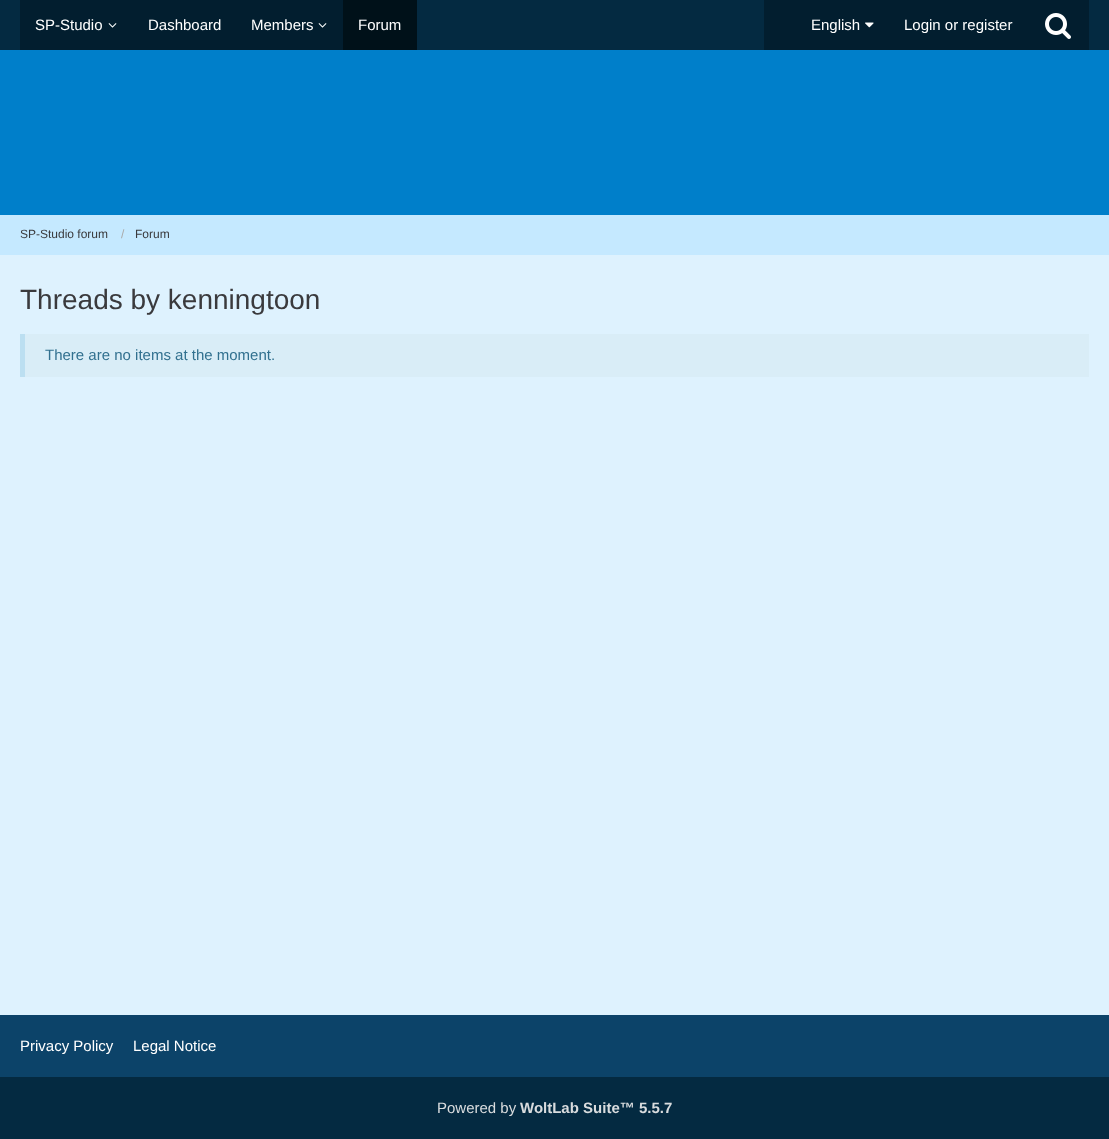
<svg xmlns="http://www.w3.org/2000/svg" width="1109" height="1139">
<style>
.a{font:15px Liberation Sans;fill:#fff}
.b{font:12px Liberation Sans;fill:#3a3a3d}
.c{font:12px Liberation Sans;fill:#aaa}
.d{font:28px Liberation Sans;fill:#3a3a3d}
.e{font:15px Liberation Sans;fill:#31708f}
.f{font:15px Liberation Sans;fill:#d9dcde}
.g{font:bold 15px Liberation Sans;fill:#d9dcde}
</style>
<rect width="100%" height="100%" fill="#def2fe"/>
<path fill="#007fca" d="M0 50h1109v165H0z"/>
<path fill="#042a41" d="M0 0h1109v50H0z"/>
<path fill="#021e2f" d="M20 0h323v50H20z"/>
<image href="1.png" x="108" y="23" width="9" height="5"/>
<image href="1.png" x="318" y="23" width="9" height="5"/>
<path fill="#001119" d="M343 0h74v50H343z"/>
<path fill="#021e2f" d="M764 0h325v50H764z"/>
<image href="2.png" x="865" y="22" width="9" height="6"/>
<image href="3.png" x="1045" y="13" width="26" height="26"/>
<path fill="#c5e9ff" d="M0 215h1109v40H0z"/>
<path fill="#d9edf7" d="M25 334h1064v43H25z"/>
<path fill="#bcdff1" d="M20 334h5v43H20z"/>
<path fill="#0c4369" d="M0 1015h1109v62H0z"/>
<path fill="#042a41" d="M0 1077h1109v62H0z"/>
<text class="a" x="35" y="30">SP-Studio</text>
<text class="a" x="148" y="30">Dashboard</text>
<text class="a" x="251" y="30">Members</text>
<text class="a" x="358" y="30">Forum</text>
<text class="a" x="811" y="30">English</text>
<text class="a" x="904" y="30">Login or register</text>
<text class="b" x="20" y="238">SP-Studio forum</text>
<text class="c" x="121" y="238">/</text>
<text class="b" x="135" y="238">Forum</text>
<text class="d" x="20" y="309">Threads by kenningtoon</text>
<text class="e" x="45" y="360">There are no items at the moment.</text>
<text class="a" x="20" y="1051">Privacy Policy</text>
<text class="a" x="133" y="1051">Legal Notice</text>
<text class="f" x="437" y="1113">Powered by</text>
<text class="g" x="520" y="1113">WoltLab Suite™ 5.5.7</text>
</svg>
